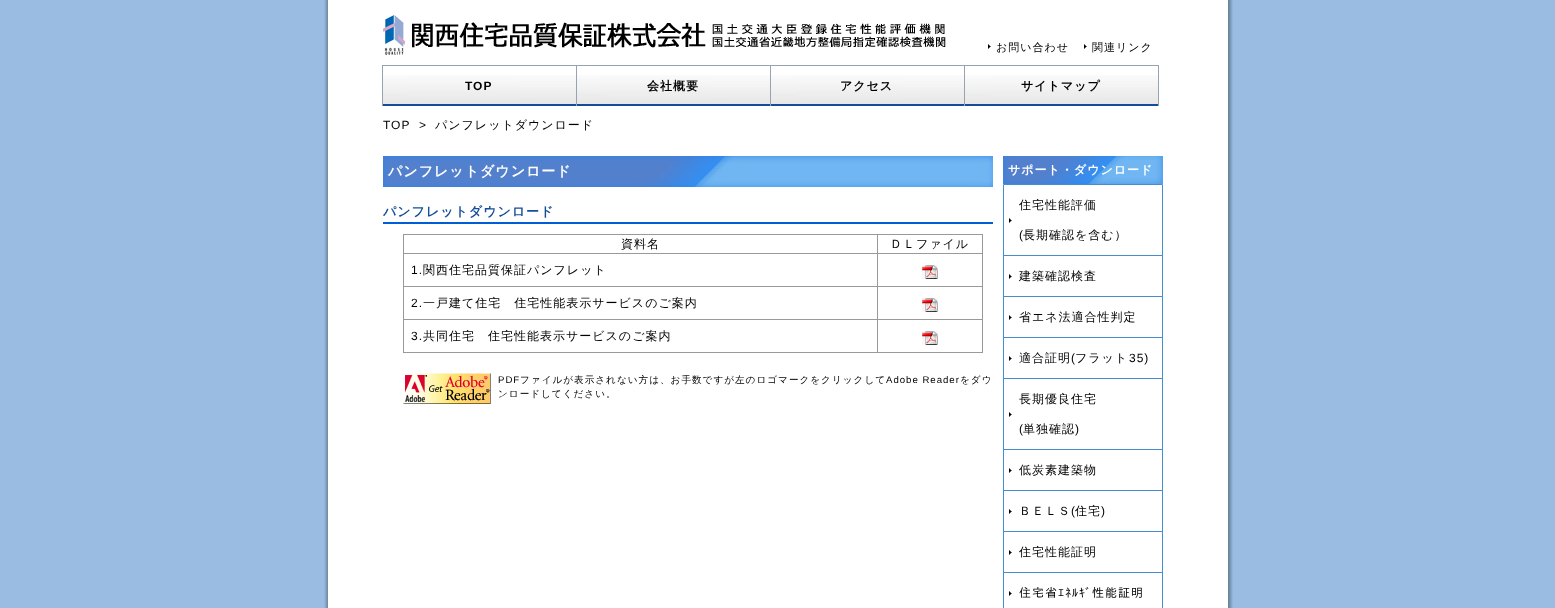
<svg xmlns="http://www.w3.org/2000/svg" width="1555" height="608">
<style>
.a{font:500 11px WenQuanYi Zen Hei;letter-spacing:1px;fill:#000}
.b{font:bold 12px Liberation Sans;letter-spacing:1px;fill:#000}
.c{font:bold 12px WenQuanYi Zen Hei;letter-spacing:1px;fill:#000}
.d{font:12px Liberation Sans;letter-spacing:1px;fill:#000}
.e{font:500 12px WenQuanYi Zen Hei;letter-spacing:1px;fill:#000}
.f{font:bold 14px WenQuanYi Zen Hei;letter-spacing:1px;fill:#fff}
.g{font:bold 13px WenQuanYi Zen Hei;letter-spacing:1px;fill:#134d99}
.h{font:9.6px Liberation Sans;letter-spacing:1px;fill:#000}
.i{font:500 9.6px WenQuanYi Zen Hei;letter-spacing:1px;fill:#000}
.j{font:bold 12px WenQuanYi Zen Hei;letter-spacing:1px;fill:#fff}
.k{font:12px IPAPGothic;letter-spacing:1px;fill:#000}
</style>
<rect width="100%" height="100%" fill="#9abce3"/>
<image href="1.png" x="323" y="0" width="910" height="608"/>
<image href="2.png" x="383" y="15" width="563" height="40"/>
<image href="3.png" x="988" y="44" width="3" height="5"/>
<image href="3.png" x="1084" y="44" width="3" height="5"/>
<image href="4.png" x="383" y="75" width="193" height="31"/>
<path fill="#99a3af" d="M382 65h777v1H382z"/>
<path fill="#99a3af" d="M382 65h1v41H382z"/>
<image href="4.png" x="577" y="75" width="193" height="31"/>
<path fill="#99a3af" d="M576 65h1v41H576z"/>
<image href="4.png" x="771" y="75" width="193" height="31"/>
<path fill="#99a3af" d="M770 65h1v41H770z"/>
<image href="4.png" x="965" y="75" width="193" height="31"/>
<path fill="#99a3af" d="M1158 65h1v41H1158z"/>
<path fill="#99a3af" d="M964 65h1v41H964z"/>
<image href="5.png" x="383" y="156" width="610" height="31"/>
<path fill="#005dd8" d="M383 222h610v2H383z"/>
<path fill="#999" d="M403 234h580v1H403z"/>
<path fill="#999" d="M982 234h1v119H982z"/>
<path fill="#999" d="M403 352h580v1H403z"/>
<path fill="#999" d="M403 234h1v119H403z"/>
<path fill="#999" d="M877 319h1v34H877z"/>
<path fill="#999" d="M877 319h106v1H877z"/>
<path fill="#999" d="M877 286h1v34H877z"/>
<path fill="#999" d="M877 286h106v1H877z"/>
<path fill="#999" d="M877 253h1v34H877z"/>
<path fill="#999" d="M877 253h106v1H877z"/>
<path fill="#999" d="M877 234h1v20H877z"/>
<path fill="#999" d="M403 253h475v1H403z"/>
<path fill="#999" d="M403 286h475v1H403z"/>
<image href="6.png" x="922" y="265" width="16" height="14"/>
<path fill="#999" d="M403 319h475v1H403z"/>
<image href="7.png" x="922" y="298" width="16" height="14"/>
<image href="6.png" x="922" y="331" width="16" height="14"/>
<image href="8.png" x="403" y="373" width="88" height="31"/>
<image href="9.png" x="1003" y="156" width="160" height="28"/>
<path fill="none" stroke="#448ecf" d="M1003.5 184.5h159v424H1003.5z"/>
<path fill="#448ecf" d="M1004 255h158v1H1004z"/>
<image href="3.png" x="1009" y="218" width="3" height="5"/>
<path fill="#448ecf" d="M1004 296h158v1H1004z"/>
<image href="3.png" x="1009" y="274" width="3" height="5"/>
<path fill="#448ecf" d="M1004 337h158v1H1004z"/>
<image href="3.png" x="1009" y="315" width="3" height="5"/>
<path fill="#448ecf" d="M1004 378h158v1H1004z"/>
<image href="3.png" x="1009" y="356" width="3" height="5"/>
<path fill="#448ecf" d="M1004 449h158v1H1004z"/>
<image href="3.png" x="1009" y="412" width="3" height="5"/>
<path fill="#448ecf" d="M1004 490h158v1H1004z"/>
<image href="3.png" x="1009" y="468" width="3" height="5"/>
<path fill="#448ecf" d="M1004 531h158v1H1004z"/>
<image href="3.png" x="1009" y="509" width="3" height="5"/>
<path fill="#448ecf" d="M1004 572h158v1H1004z"/>
<image href="3.png" x="1009" y="550" width="3" height="5"/>
<image href="3.png" x="1009" y="591" width="3" height="5"/>
<text class="a" x="996" y="51">お問い合わせ</text>
<text class="a" x="1092" y="51">関連リンク</text>
<text class="b" x="465" y="90">TOP</text>
<text class="c" x="647" y="90">会社概要</text>
<text class="c" x="840" y="90">アクセス</text>
<text class="c" x="1021" y="90">サイトマップ</text>
<text class="d" x="383" y="129">TOP</text>
<text class="d" x="419" y="129">&gt;</text>
<text class="e" x="435" y="129">パンフレットダウンロード</text>
<text class="f" x="388" y="176">パンフレットダウンロード</text>
<text class="g" x="383" y="216">パンフレットダウンロード</text>
<text class="e" x="621" y="248">資料名</text>
<text class="e" x="890" y="248">ＤＬファイル</text>
<text class="d" x="411" y="274">1.</text>
<text class="e" x="423" y="274">関西住宅品質保証パンフレット</text>
<text class="d" x="411" y="307">2.</text>
<text class="e" x="423" y="307">一戸建て住宅　住宅性能表示サービスのご案内</text>
<text class="d" x="411" y="340">3.</text>
<text class="e" x="423" y="340">共同住宅　住宅性能表示サービスのご案内</text>
<text class="h" x="498" y="383">PDF</text>
<text class="i" x="520" y="383">ファイルが表示されない方は、お手数ですが左のロゴマークをクリックして</text>
<text class="h" x="886" y="383">Adobe Reader</text>
<text class="i" x="960" y="383">をダウ</text>
<text class="i" x="498" y="397">ンロードしてください。</text>
<text class="j" x="1008" y="174">サポート・ダウンロード</text>
<text class="e" x="1019" y="209">住宅性能評価</text>
<text class="d" x="1019" y="239">(</text>
<text class="e" x="1023" y="239">長期確認を含む）</text>
<text class="e" x="1019" y="280">建築確認検査</text>
<text class="e" x="1019" y="321">省エネ法適合性判定</text>
<text class="e" x="1019" y="362">適合証明</text>
<text class="d" x="1071" y="362">(</text>
<text class="e" x="1075" y="362">フラット</text>
<text class="d" x="1129" y="362">35)</text>
<text class="e" x="1019" y="403">長期優良住宅</text>
<text class="d" x="1019" y="433">(</text>
<text class="e" x="1023" y="433">単独確認</text>
<text class="d" x="1075" y="433">)</text>
<text class="e" x="1019" y="474">低炭素建築物</text>
<text class="e" x="1019" y="515">ＢＥＬＳ</text>
<text class="d" x="1071" y="515">(</text>
<text class="e" x="1075" y="515">住宅</text>
<text class="d" x="1101" y="515">)</text>
<text class="e" x="1019" y="556">住宅性能証明</text>
<text class="k" x="1019" y="597">住宅省ｴﾈﾙｷﾞ性能証明</text>
</svg>
